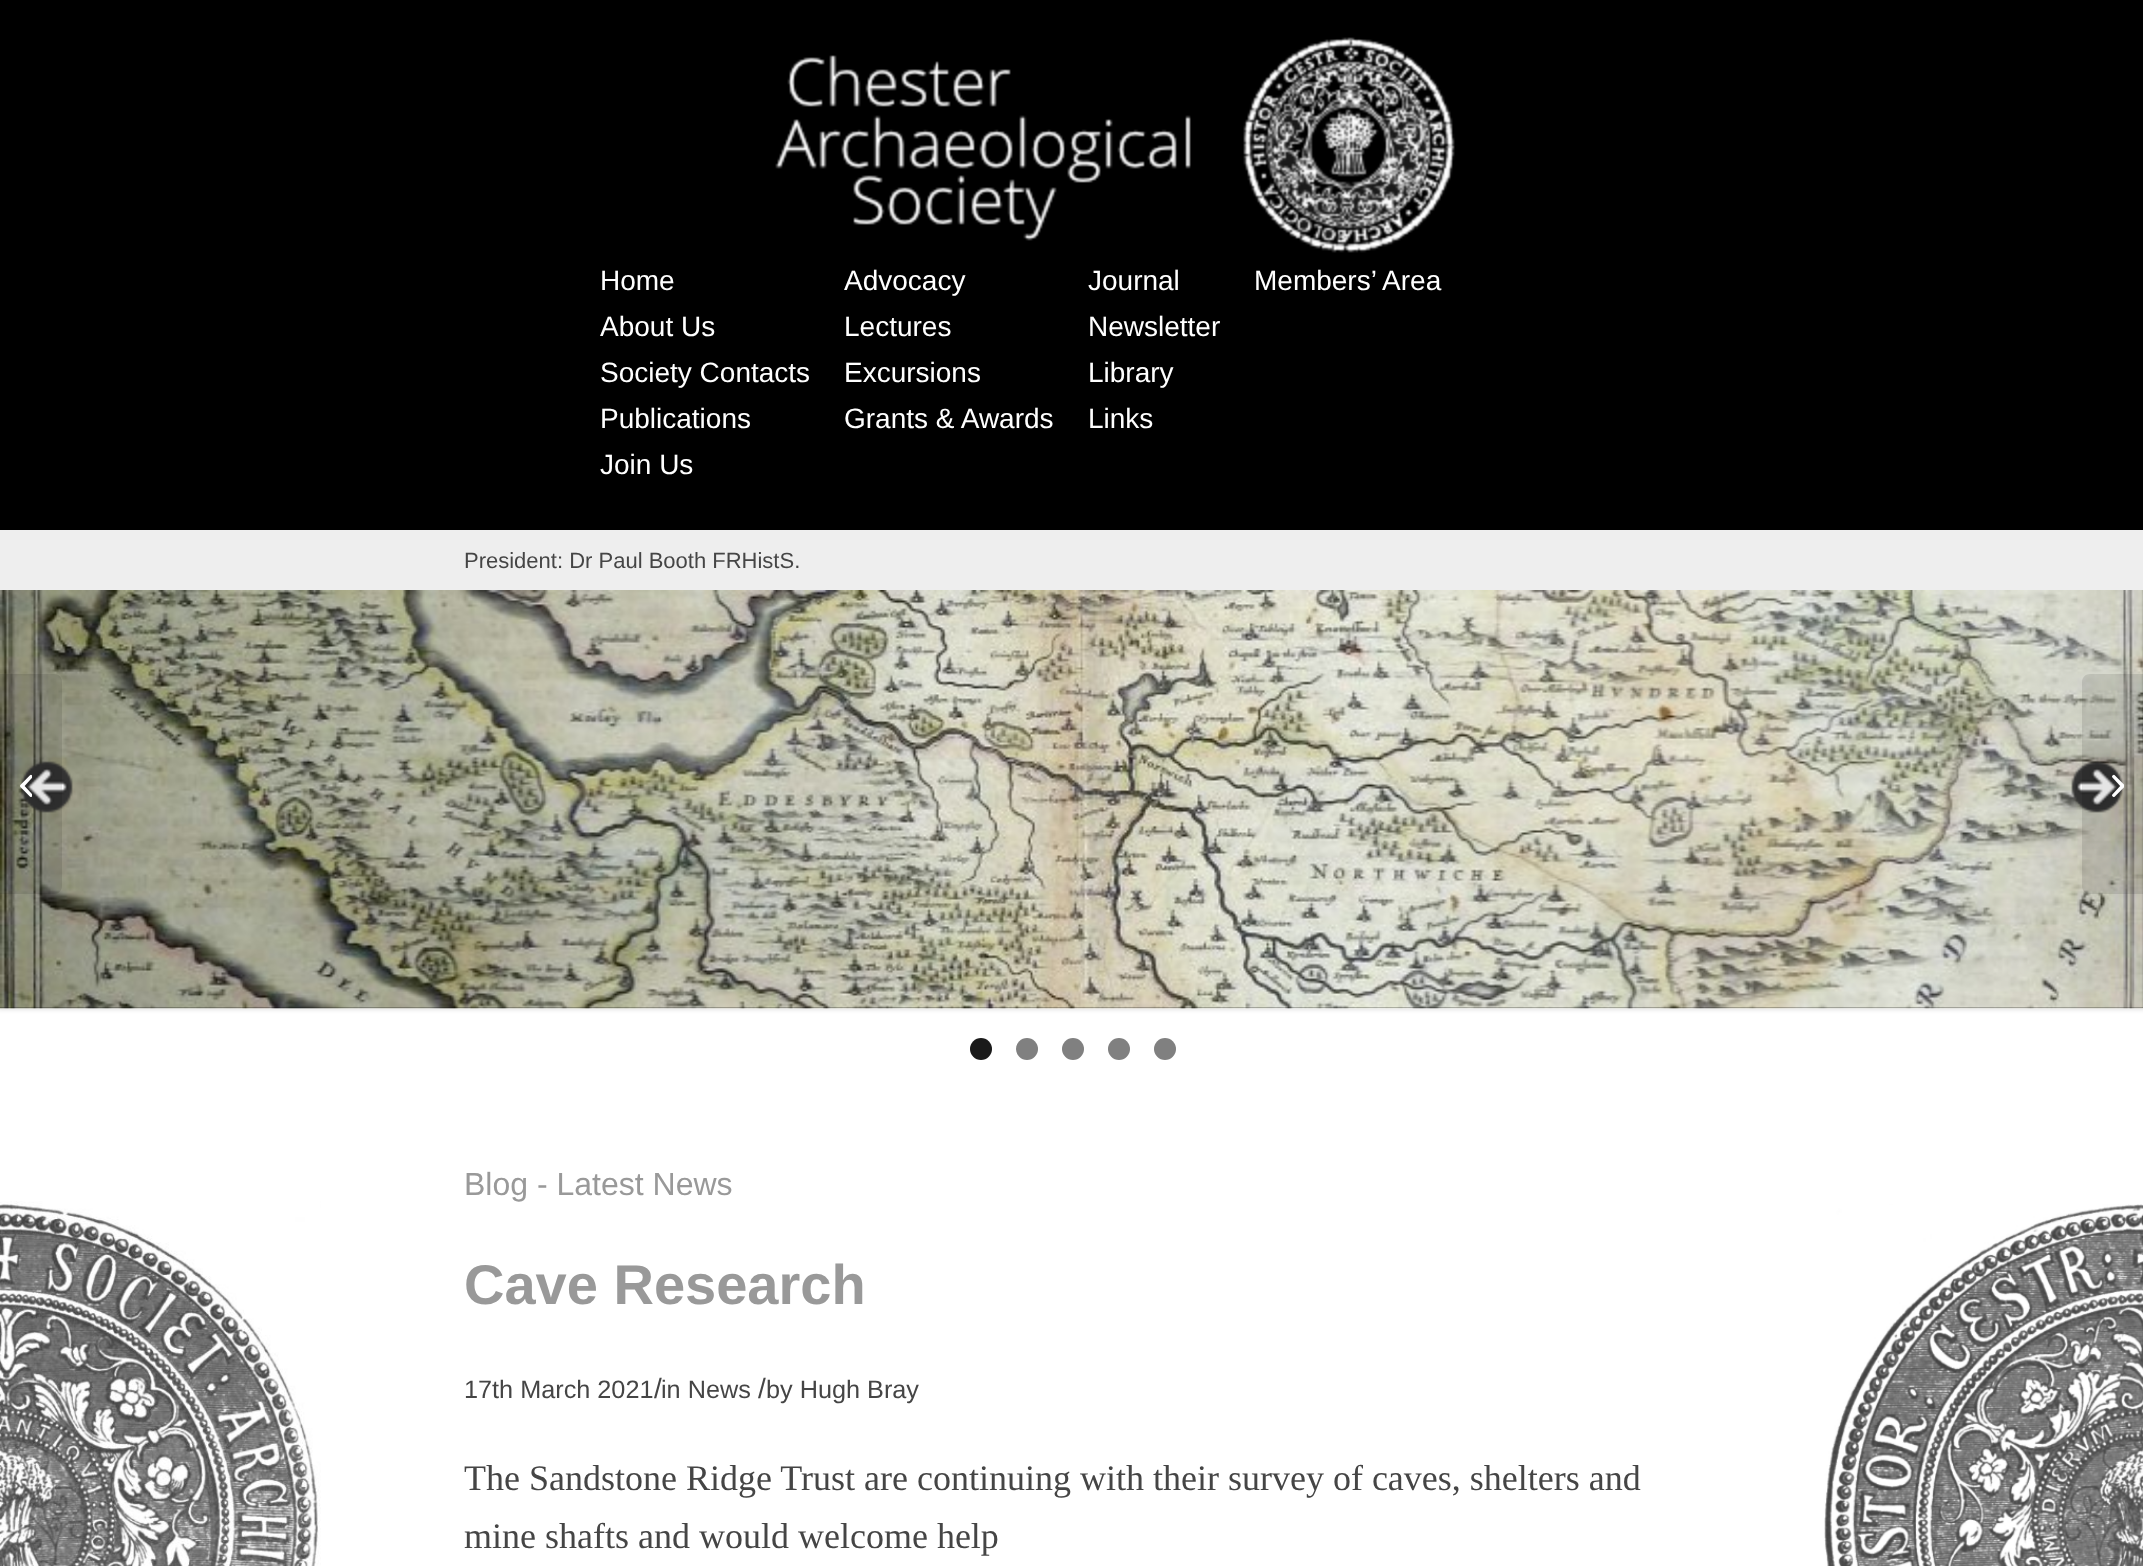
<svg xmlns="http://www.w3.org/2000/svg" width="2143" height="1566">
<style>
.a{font:28px Liberation Sans;fill:#fff}
.b{font:22px Liberation Sans;fill:#454545}
.c{font:32px Liberation Sans;fill:#999}
.d{font:bold 56px Liberation Sans;fill:#999}
.e{font:25.25px Liberation Sans;fill:#454545}
.f{font:28px Liberation Sans;fill:#454545}
.g{font:36px Liberation Serif;fill:#454545}
</style>
<rect width="100%" height="100%" fill="#fff"/>
<image href="1.png" x="0" y="1201" width="321" height="365"/>
<path fill="#0000001a" filter="blur(2px)" d="M-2 -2h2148v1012H-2z"/>
<path fill="#000" d="M0 0h2143v1008H0z"/>
<image href="2.png" x="775" y="37" width="680" height="216"/>
<path fill="#eee" d="M0 530h2143v60H0z"/>
<image href="3.png" x="0" y="590" width="2143" height="419"/>
<image href="4.png" x="21" y="761" width="52" height="52"/>
<image href="5.png" x="2071" y="761" width="52" height="52"/>
<circle fill="#1a1a1a" cx="981" cy="1049" r="11"/>
<circle fill="#808080" cx="1027" cy="1049" r="11"/>
<circle fill="#808080" cx="1073" cy="1049" r="11"/>
<circle fill="#808080" cx="1119" cy="1049" r="11"/>
<circle fill="#808080" cx="1165" cy="1049" r="11"/>
<path fill="#0000001a" d="M0 674h54c4.5 0 8 3.5 8 8v204c0 4.5-3.5 8-8 8h-54z"/>
<image href="6.png" x="20" y="774" width="12" height="23"/>
<path fill="#0000001a" d="M2090 674h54v220h-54c-4.5 0-8-3.5-8-8v-204c0-4.5 3.5-8 8-8z"/>
<image href="7.png" x="2112" y="774" width="12" height="24"/>
<image href="8.png" x="1824" y="1204" width="319" height="362"/>
<text class="a" x="600" y="290">Home</text>
<text class="a" x="600" y="336">About Us</text>
<text class="a" x="600" y="382">Society Contacts</text>
<text class="a" x="600" y="428">Publications</text>
<text class="a" x="600" y="474">Join Us</text>
<text class="a" x="844" y="290">Advocacy</text>
<text class="a" x="844" y="336">Lectures</text>
<text class="a" x="844" y="382">Excursions</text>
<text class="a" x="844" y="428">Grants &amp; Awards</text>
<text class="a" x="1088" y="290">Journal</text>
<text class="a" x="1088" y="336">Newsletter</text>
<text class="a" x="1088" y="382">Library</text>
<text class="a" x="1088" y="428">Links</text>
<text class="a" x="1254" y="290">Members’ Area</text>
<text class="b" x="464" y="568">President: Dr Paul Booth FRHistS.</text>
<text class="c" x="464" y="1195">Blog - Latest News</text>
<text class="d" x="464" y="1304">Cave Research</text>
<text class="e" x="464" y="1398">17th March 2021</text>
<text class="f" x="654" y="1398">/</text>
<text class="e" x="661" y="1398">in News</text>
<text class="f" x="758" y="1398">/</text>
<text class="e" x="766" y="1398">by Hugh Bray</text>
<text class="g" x="464" y="1490">The Sandstone Ridge Trust are continuing with their survey of caves, shelters and</text>
<text class="g" x="464" y="1548">mine shafts and would welcome help</text>
</svg>
